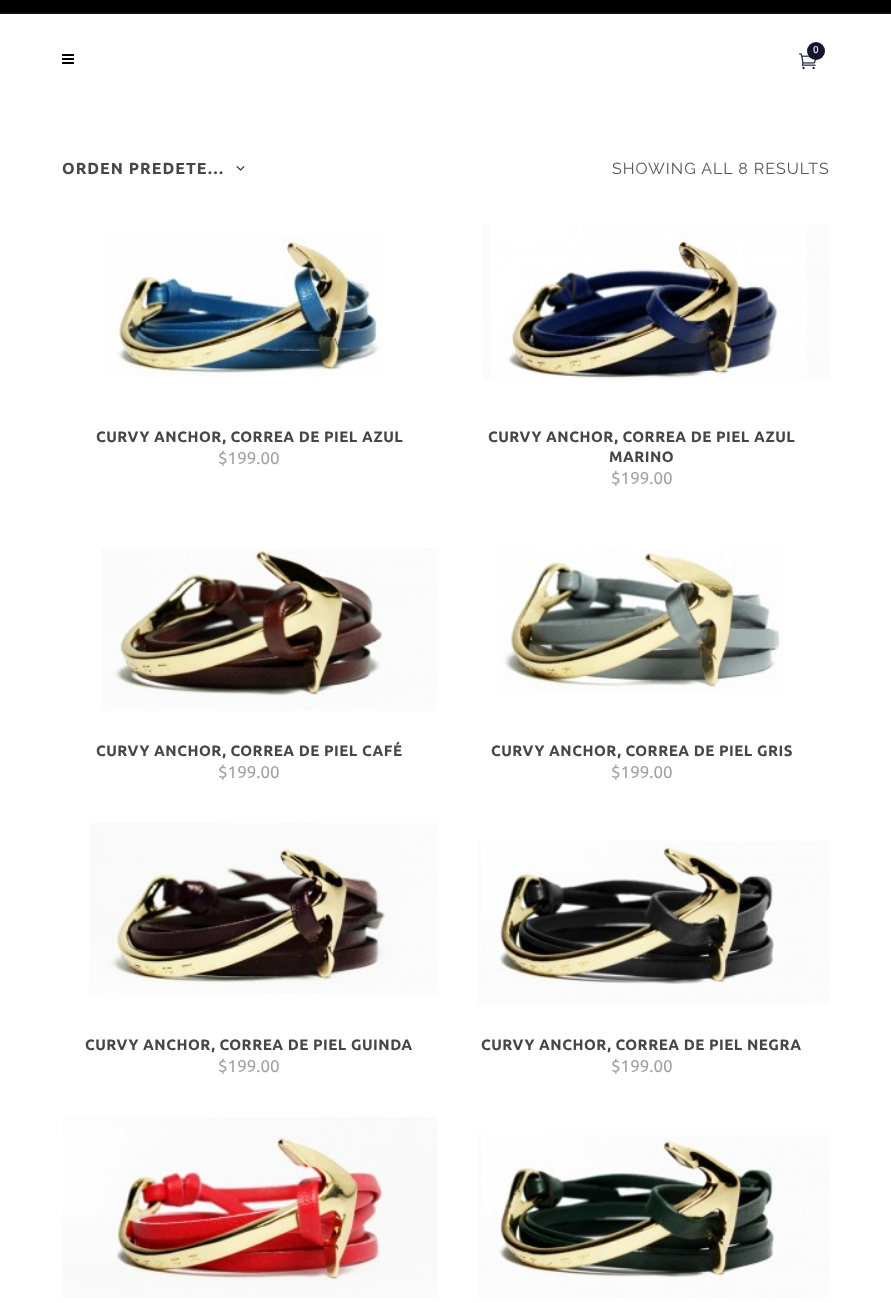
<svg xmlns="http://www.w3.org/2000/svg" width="891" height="1303">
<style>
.a{font:10px Ubuntu;fill:#fff}
.b{font:bold 16px Ubuntu;letter-spacing:1px;fill:#464646}
.c{font:16px Raleway;letter-spacing:1px;fill:#555}
.d{font:bold 15px Ubuntu;letter-spacing:0.5px;fill:#464646}
.e{font:17px Ubuntu;fill:#a1a1a1}
</style>
<rect width="100%" height="100%" fill="#fff"/>
<path fill="#000" d="M0 0h891v13H0z"/>
<path fill="#13162d" d="M0 13h891v1H0z"/>
<image href="1.png" x="799" y="53" width="18" height="17"/>
<circle fill="#13162d" cx="816" cy="51" r="9"/>
<image href="2.png" x="62" y="54" width="12" height="10"/>
<image href="3.png" x="236" y="166" width="9" height="5"/>
<image href="4.png" x="103" y="236" width="279" height="141"/>
<image href="5.png" x="483" y="224" width="346" height="156"/>
<image href="6.png" x="101" y="548" width="336" height="163"/>
<image href="7.png" x="495" y="550" width="288" height="140"/>
<image href="8.png" x="89" y="823" width="348" height="171"/>
<image href="9.png" x="477" y="841" width="352" height="164"/>
<image href="10.png" x="62" y="1117" width="375" height="181"/>
<image href="11.png" x="477" y="1135" width="352" height="163"/>
<text class="a" x="813" y="53">0</text>
<text class="b" x="62" y="174">ORDEN PREDETE…</text>
<text class="c" x="612" y="174">SHOWING ALL 8 RESULTS</text>
<text class="d" x="96" y="442">CURVY ANCHOR, CORREA DE PIEL AZUL</text>
<text class="e" x="218" y="464">$199.00</text>
<text class="d" x="488" y="442">CURVY ANCHOR, CORREA DE PIEL AZUL</text>
<text class="d" x="609" y="462">MARINO</text>
<text class="e" x="611" y="484">$199.00</text>
<text class="d" x="96" y="756">CURVY ANCHOR, CORREA DE PIEL CAFÉ</text>
<text class="e" x="218" y="778">$199.00</text>
<text class="d" x="491" y="756">CURVY ANCHOR, CORREA DE PIEL GRIS</text>
<text class="e" x="611" y="778">$199.00</text>
<text class="d" x="85" y="1050">CURVY ANCHOR, CORREA DE PIEL GUINDA</text>
<text class="e" x="218" y="1072">$199.00</text>
<text class="d" x="481" y="1050">CURVY ANCHOR, CORREA DE PIEL NEGRA</text>
<text class="e" x="611" y="1072">$199.00</text>
</svg>
